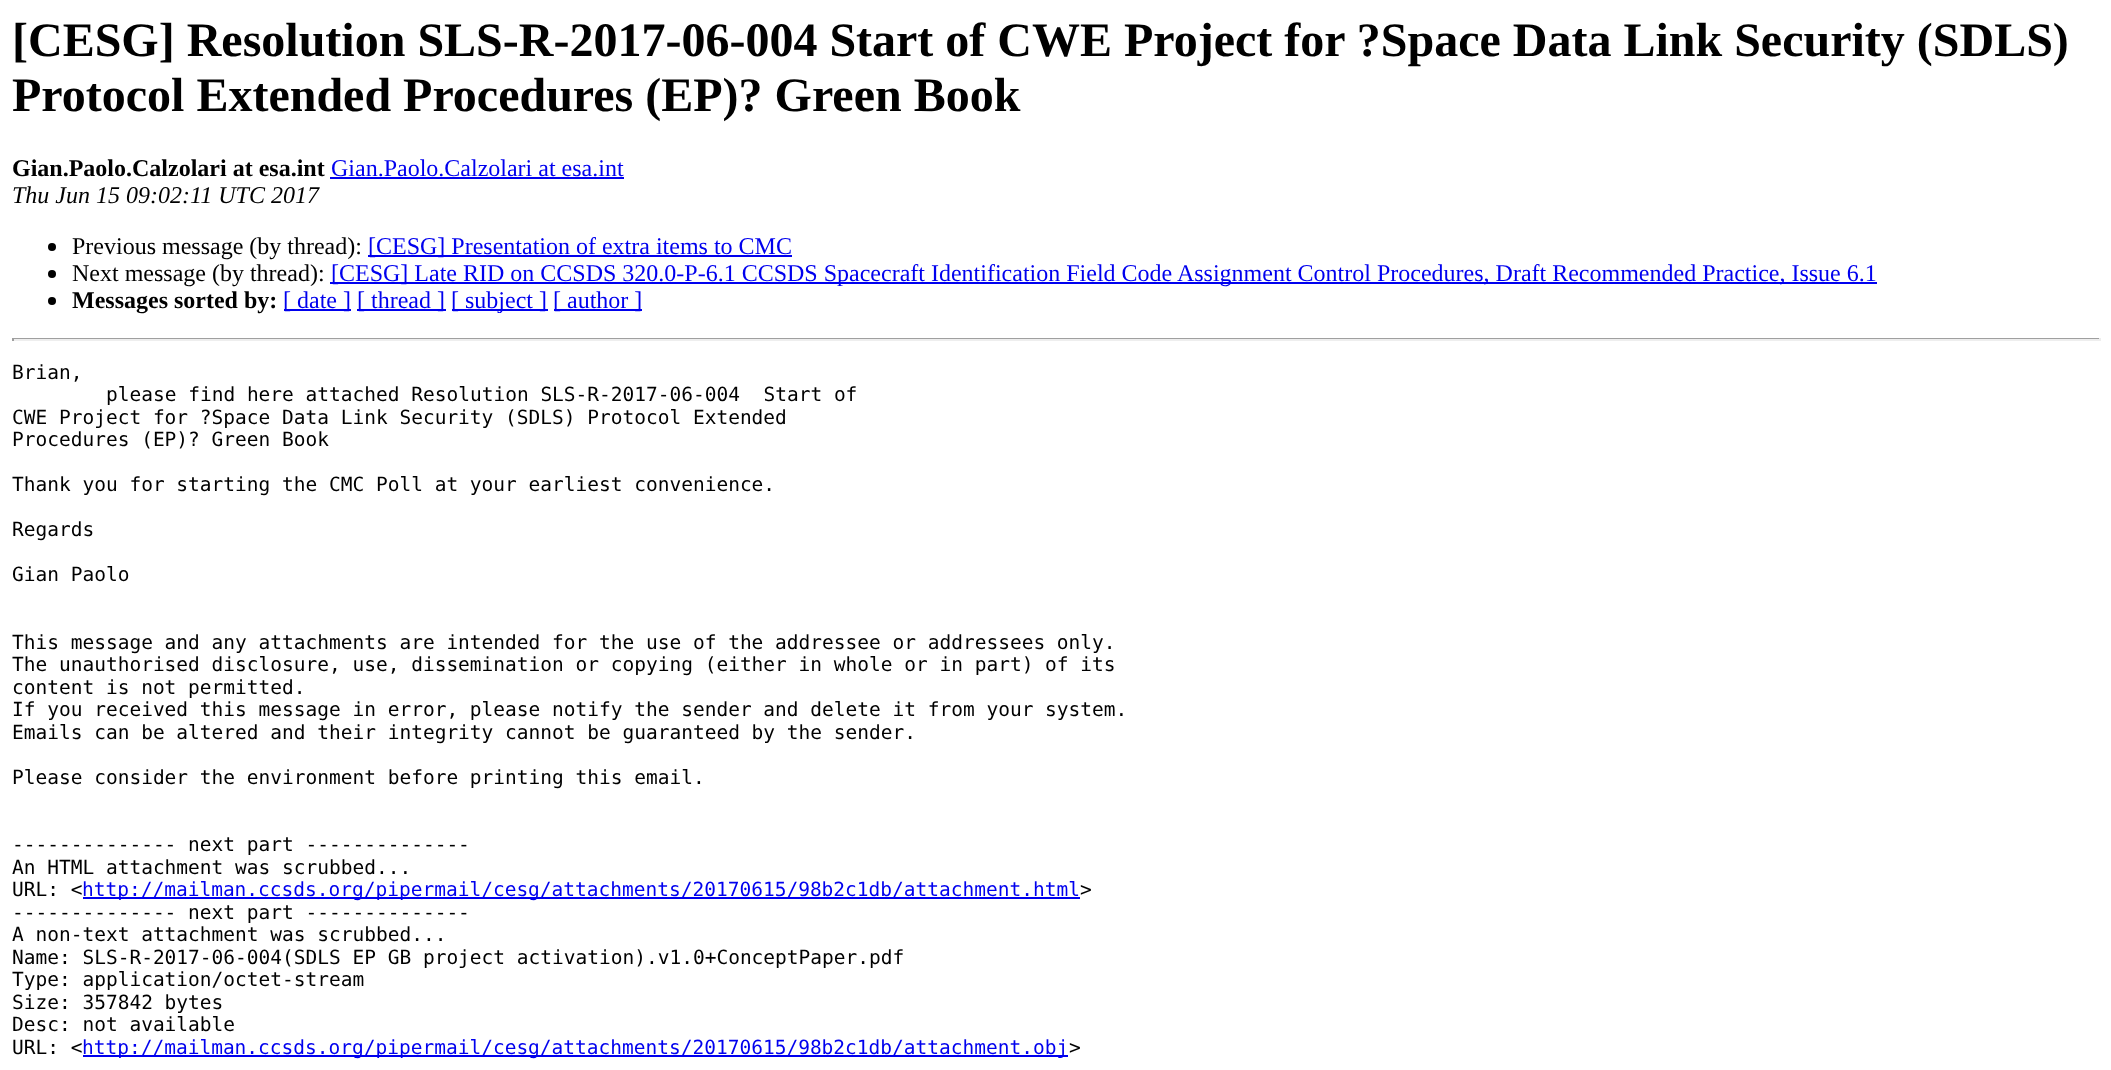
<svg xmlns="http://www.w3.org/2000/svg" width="2111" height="1070">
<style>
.a{font:bold 48px Liberation Serif;fill:#000}
.b{font:bold 24px Liberation Serif;fill:#000}
.c{font:24px Liberation Serif;fill:#00e}
.d{font:italic 24px Liberation Serif;fill:#000}
.e{font:24px Liberation Serif;fill:#000}
.f{font:19.5px DejaVu Sans Mono;fill:#000}
.g{font:19.5px DejaVu Sans Mono;fill:#00e}
</style>
<rect width="100%" height="100%" fill="#fff"/>
<path fill="#00e" d="M330 177h294v2H330z"/>
<circle fill="#000" cx="52" cy="247" r="4"/>
<path fill="#00e" d="M368 255h424v2H368z"/>
<circle fill="#000" cx="52" cy="274" r="4"/>
<path fill="#00e" d="M330 282h1547v2H330z"/>
<circle fill="#000" cx="52" cy="301" r="4"/>
<path fill="#00e" d="M284 309h67v2H284z"/>
<path fill="#00e" d="M357 309h89v2H357z"/>
<path fill="#00e" d="M452 309h96v2H452z"/>
<path fill="#00e" d="M554 309h88v2H554z"/>
<path fill="#9f9f9f" d="M12 338h2088v1H12z"/>
<path fill="#eee" d="M2099 338h2v3H2099z"/>
<path fill="#eee" d="M12 339h2088v2H12z"/>
<path fill="#9f9f9f" d="M12 338h2v3H12z"/>
<path fill="#00e" d="M83 897h997v2H83z"/>
<path fill="#00e" d="M83 1055h985v2H83z"/>
<text class="a" x="12" y="56">[CESG] Resolution SLS-R-2017-06-004 Start of CWE Project for ?Space Data Link Security (SDLS)</text>
<text class="a" x="12" y="111">Protocol Extended Procedures (EP)? Green Book</text>
<text class="b" x="12" y="176">Gian.Paolo.Calzolari at esa.int</text>
<text class="c" x="331" y="176">Gian.Paolo.Calzolari at esa.int</text>
<text class="d" x="12" y="203">Thu Jun 15 09:02:11 UTC 2017</text>
<text class="e" x="72" y="254">Previous message (by thread):</text>
<text class="c" x="368" y="254">[CESG] Presentation of extra items to CMC</text>
<text class="e" x="72" y="281">Next message (by thread):</text>
<text class="c" x="331" y="281">[CESG] Late RID on CCSDS 320.0-P-6.1 CCSDS Spacecraft Identification Field Code Assignment Control Procedures, Draft Recommended Practice, Issue 6.1</text>
<text class="b" x="72" y="308">Messages sorted by:</text>
<text class="c" x="283" y="308">[ date ]</text>
<text class="c" x="357" y="308">[ thread ]</text>
<text class="c" x="451" y="308">[ subject ]</text>
<text class="c" x="553" y="308">[ author ]</text>
<text class="f" x="12" y="379">Brian,</text>
<text class="f" xml:space="preserve" x="106" y="401">please find here attached Resolution SLS-R-2017-06-004  Start of</text>
<text class="f" x="12" y="424">CWE Project for ?Space Data Link Security (SDLS) Protocol Extended</text>
<text class="f" x="12" y="446">Procedures (EP)? Green Book</text>
<text class="f" x="12" y="491">Thank you for starting the CMC Poll at your earliest convenience.</text>
<text class="f" x="12" y="536">Regards</text>
<text class="f" x="12" y="581">Gian Paolo</text>
<text class="f" x="12" y="649">This message and any attachments are intended for the use of the addressee or addressees only.</text>
<text class="f" x="12" y="671">The unauthorised disclosure, use, dissemination or copying (either in whole or in part) of its</text>
<text class="f" x="12" y="694">content is not permitted.</text>
<text class="f" x="12" y="716">If you received this message in error, please notify the sender and delete it from your system.</text>
<text class="f" x="12" y="739">Emails can be altered and their integrity cannot be guaranteed by the sender.</text>
<text class="f" x="12" y="784">Please consider the environment before printing this email.</text>
<text class="f" x="12" y="851">-------------- next part --------------</text>
<text class="f" x="12" y="874">An HTML attachment was scrubbed...</text>
<text class="f" x="12" y="896">URL: &lt;</text>
<text class="g" x="82" y="896">http://mailman.ccsds.org/pipermail/cesg/attachments/20170615/98b2c1db/attachment.html</text>
<text class="f" x="1080" y="896">&gt;</text>
<text class="f" x="12" y="919">-------------- next part --------------</text>
<text class="f" x="12" y="941">A non-text attachment was scrubbed...</text>
<text class="f" x="12" y="964">Name: SLS-R-2017-06-004(SDLS EP GB project activation).v1.0+ConceptPaper.pdf</text>
<text class="f" x="12" y="986">Type: application/octet-stream</text>
<text class="f" x="12" y="1009">Size: 357842 bytes</text>
<text class="f" x="12" y="1031">Desc: not available</text>
<text class="f" x="12" y="1054">URL: &lt;</text>
<text class="g" x="82" y="1054">http://mailman.ccsds.org/pipermail/cesg/attachments/20170615/98b2c1db/attachment.obj</text>
<text class="f" x="1069" y="1054">&gt;</text>
</svg>
